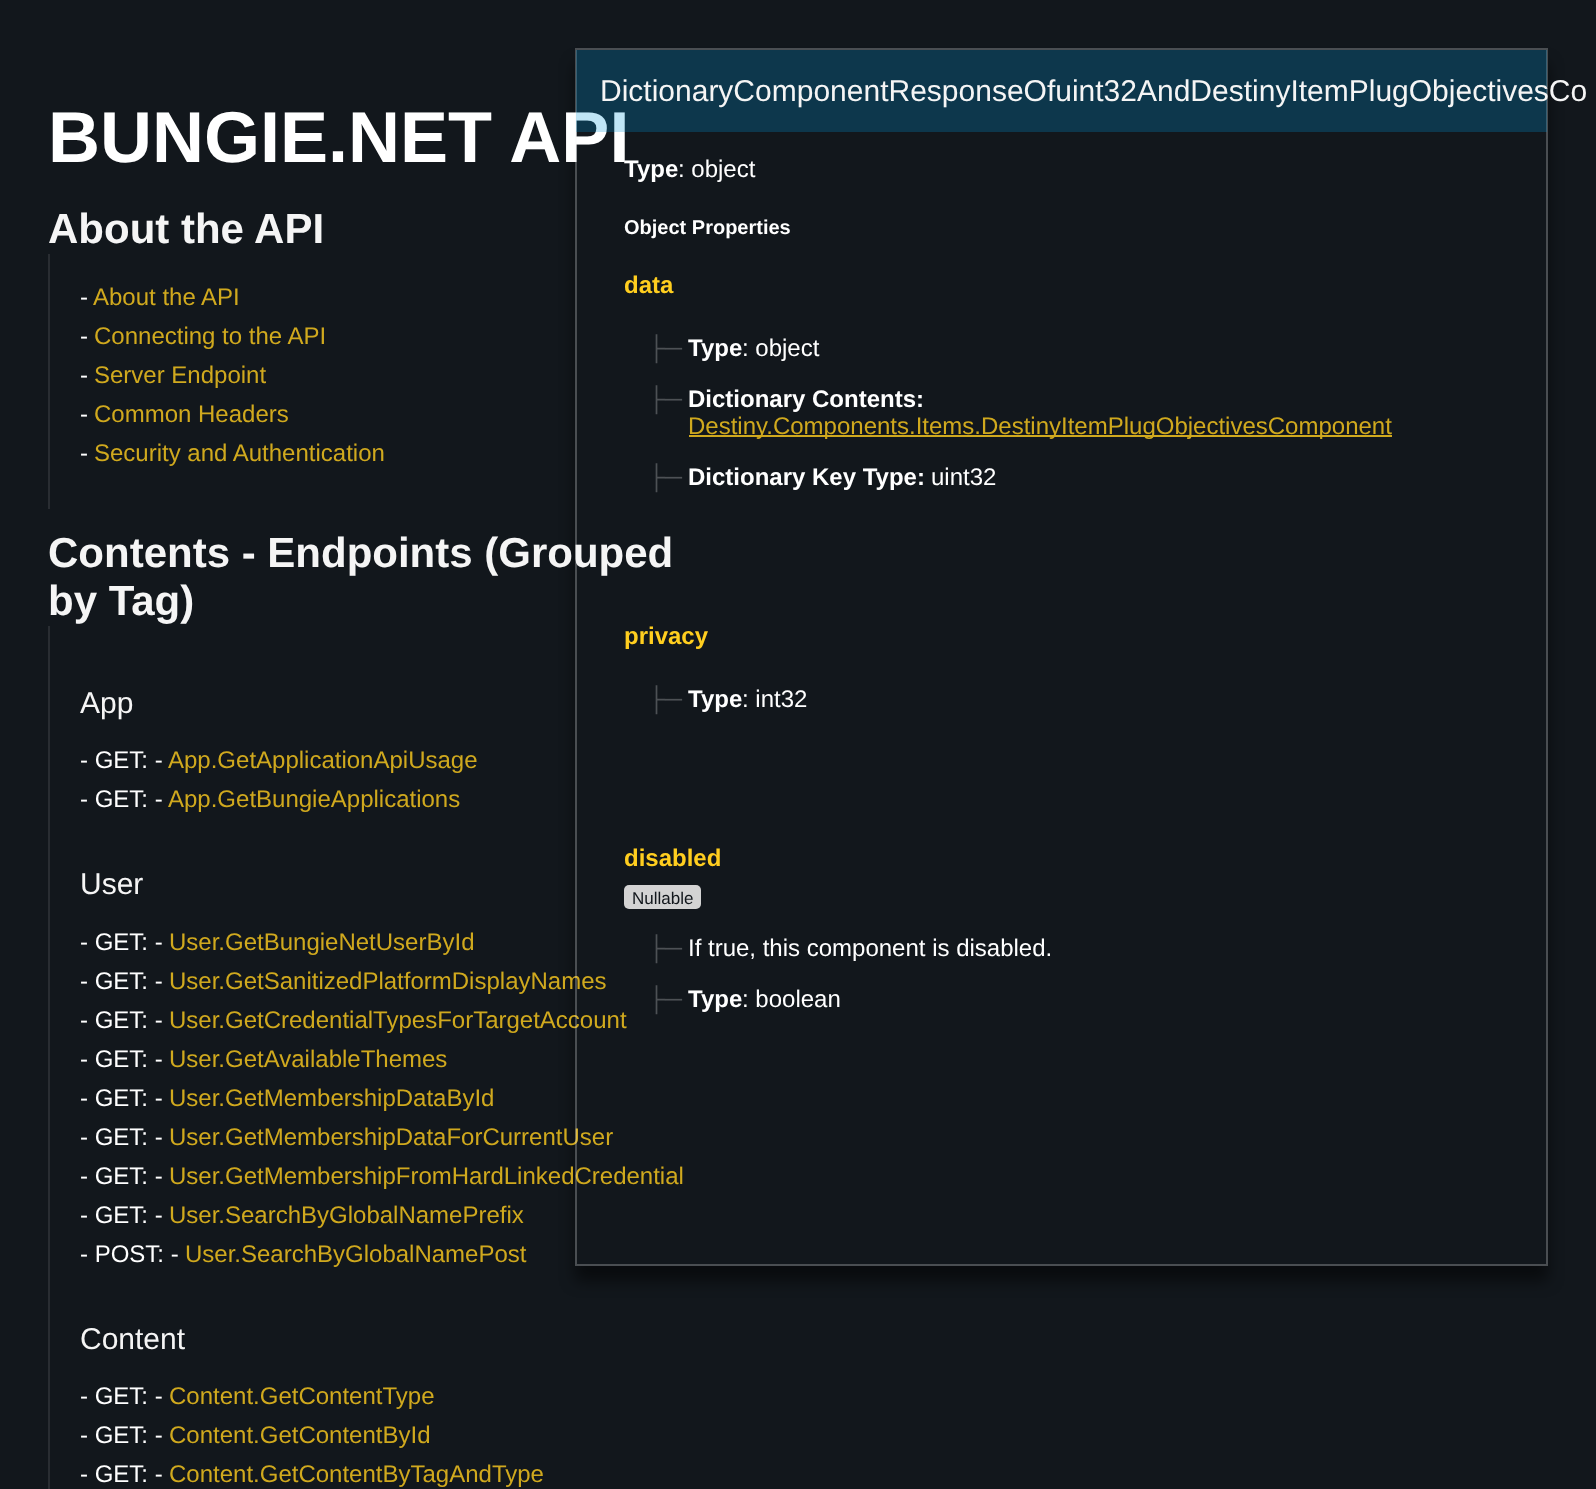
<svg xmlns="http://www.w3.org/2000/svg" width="1596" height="1489">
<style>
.a{font:bold 72px Liberation Sans;fill:#fff}
.b{font:bold 42px Liberation Sans;fill:#f5f5f5}
.c{font:24px Liberation Sans;fill:#fff}
.d{font:24px Liberation Sans;fill:#d0a91e}
.e{font:30px Liberation Sans;fill:#f5f5f5}
.f{font:bold 24px Liberation Sans;fill:#fff}
.g{font:bold 20px Liberation Sans;fill:#fff}
.h{font:bold 24px Liberation Sans;fill:#ffce1f}
.i{font:24px Liberation Sans;fill:#4d5155}
.j{font:17px Liberation Sans;fill:#12171c}
</style>
<defs>
<clipPath id="clip1"><path d="M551 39h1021v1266h-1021zm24 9h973v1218h-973z" clip-rule="evenodd"/></clipPath>
</defs>
<rect width="100%" height="100%" fill="#12171c"/>
<path fill="#292d32" d="M48 254h2v255H48z"/>
<path fill="#292d32" d="M48 626h2v863H48z"/>
<g clip-path="url(#clip1)">
<path fill="#00000080" filter="blur(7.5px)" d="M575 63h973v1218H575z"/>
</g>
<text class="a" x="48" y="162">BUNGIE.NET API</text>
<text class="b" x="48" y="243">About the API</text>
<text class="c" x="80" y="305">-</text>
<text class="d" x="93" y="305">About the API</text>
<text class="c" x="80" y="344">-</text>
<text class="d" x="94" y="344">Connecting to the API</text>
<text class="c" x="80" y="383">-</text>
<text class="d" x="94" y="383">Server Endpoint</text>
<text class="c" x="80" y="422">-</text>
<text class="d" x="94" y="422">Common Headers</text>
<text class="c" x="80" y="461">-</text>
<text class="d" x="94" y="461">Security and Authentication</text>
<text class="b" x="48" y="567">Contents - Endpoints (Grouped</text>
<text class="b" x="48" y="615">by Tag)</text>
<text class="e" x="80" y="713">App</text>
<text class="c" x="80" y="768">- GET: -</text>
<text class="d" x="168" y="768">App.GetApplicationApiUsage</text>
<text class="c" x="80" y="807">- GET: -</text>
<text class="d" x="168" y="807">App.GetBungieApplications</text>
<text class="e" x="80" y="894">User</text>
<text class="c" x="80" y="950">- GET: -</text>
<text class="d" x="169" y="950">User.GetBungieNetUserById</text>
<text class="c" x="80" y="989">- GET: -</text>
<text class="d" x="169" y="989">User.GetSanitizedPlatformDisplayNames</text>
<text class="c" x="80" y="1028">- GET: -</text>
<text class="d" x="169" y="1028">User.GetCredentialTypesForTargetAccount</text>
<text class="c" x="80" y="1067">- GET: -</text>
<text class="d" x="169" y="1067">User.GetAvailableThemes</text>
<text class="c" x="80" y="1106">- GET: -</text>
<text class="d" x="169" y="1106">User.GetMembershipDataById</text>
<text class="c" x="80" y="1145">- GET: -</text>
<text class="d" x="169" y="1145">User.GetMembershipDataForCurrentUser</text>
<text class="c" x="80" y="1184">- GET: -</text>
<text class="d" x="169" y="1184">User.GetMembershipFromHardLinkedCredential</text>
<text class="c" x="80" y="1223">- GET: -</text>
<text class="d" x="169" y="1223">User.SearchByGlobalNamePrefix</text>
<text class="c" x="80" y="1262">- POST: -</text>
<text class="d" x="185" y="1262">User.SearchByGlobalNamePost</text>
<text class="e" x="80" y="1349">Content</text>
<text class="c" x="80" y="1404">- GET: -</text>
<text class="d" x="169" y="1404">Content.GetContentType</text>
<text class="c" x="80" y="1443">- GET: -</text>
<text class="d" x="169" y="1443">Content.GetContentById</text>
<text class="c" x="80" y="1482">- GET: -</text>
<text class="d" x="169" y="1482">Content.GetContentByTagAndType</text>
<path fill="none" stroke="#f5f5f540" stroke-width="2" d="M576 49h971v1216H576z"/>
<path fill="#0096db40" d="M576 50h971v82H576z"/>
<text class="e" x="600" y="101">DictionaryComponentResponseOfuint32AndDestinyItemPlugObjectivesCo</text>
<text class="f" x="624" y="177">Type</text>
<text class="c" x="678" y="177">: object</text>
<text class="g" x="624" y="234">Object Properties</text>
<text class="h" x="624" y="293">data</text>
<text class="i" x="648" y="356">├─</text>
<text class="f" x="688" y="356">Type</text>
<text class="c" x="742" y="356">: object</text>
<text class="i" x="648" y="407">├─</text>
<text class="f" x="688" y="407">Dictionary Contents:</text>
<path fill="#d0a91e" d="M689 435h703v2H689z"/>
<text class="d" x="688" y="434">Destiny.Components.Items.DestinyItemPlugObjectivesComponent</text>
<text class="i" x="648" y="485">├─</text>
<text class="f" x="688" y="485">Dictionary Key Type:</text>
<text class="c" x="931" y="485">uint32</text>
<text class="h" x="624" y="644">privacy</text>
<text class="i" x="648" y="707">├─</text>
<text class="f" x="688" y="707">Type</text>
<text class="c" x="742" y="707">: int32</text>
<text class="h" x="624" y="866">disabled</text>
<rect fill="#d3d3d3" x="624" y="885" width="77" height="24" rx="5"/>
<text class="j" x="632" y="904">Nullable</text>
<text class="i" x="648" y="956">├─</text>
<text class="c" x="688" y="956">If true, this component is disabled.</text>
<text class="i" x="648" y="1007">├─</text>
<text class="f" x="688" y="1007">Type</text>
<text class="c" x="742" y="1007">: boolean</text>
</svg>
